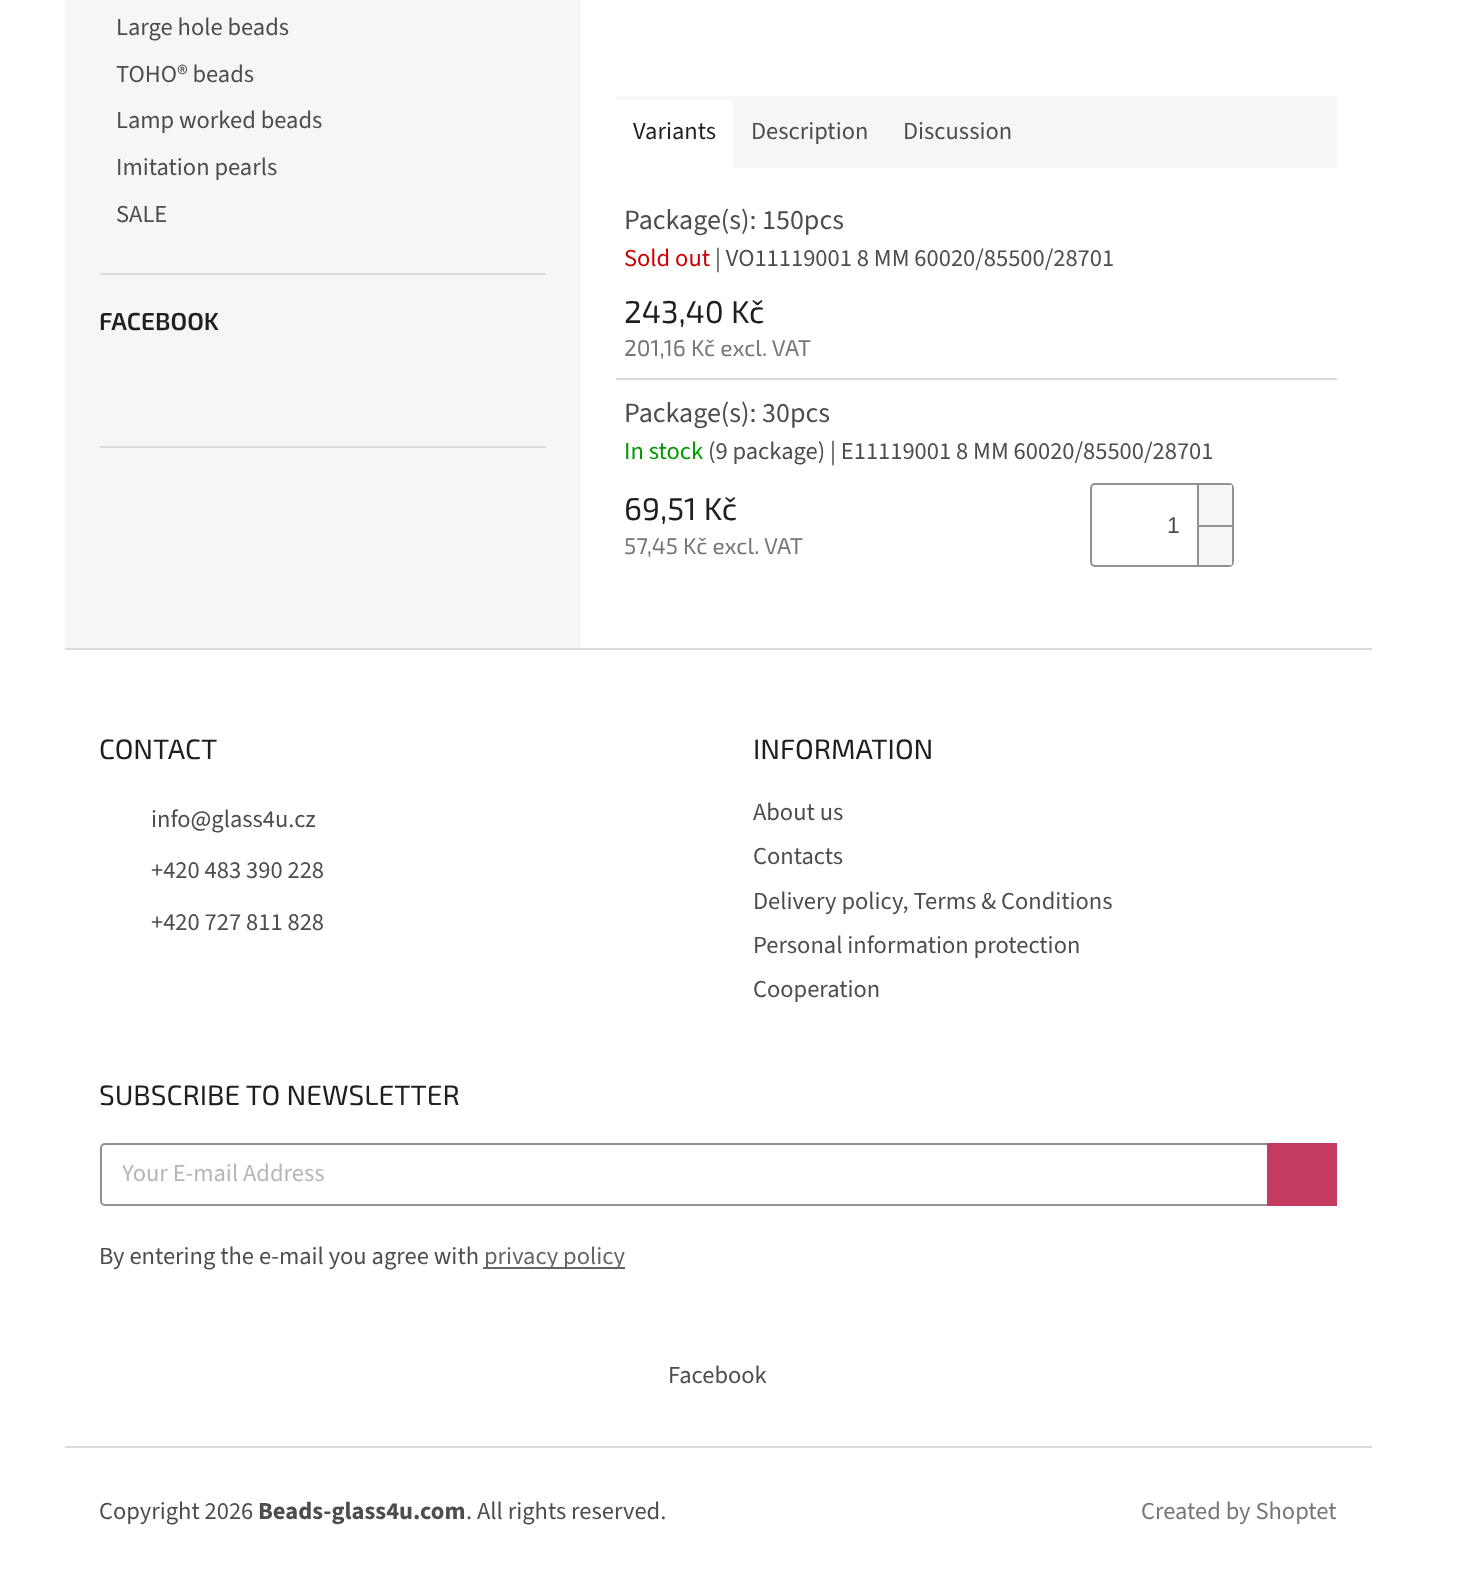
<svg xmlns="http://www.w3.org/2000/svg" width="1461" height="1580">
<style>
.a{font:24.5px 'Source Sans 3';fill:#4d4d4d}
.b{font:600 24.5px 'Exo 2';fill:#1f1f1f}
.c{font:24.5px 'Source Sans 3';fill:#1f1f1f}
.d{font:28px 'Source Sans 3';fill:#4d4d4d}
.e{font:24.5px 'Source Sans 3';fill:#cb0000}
.f{font:31.5px 'Exo 2';fill:#1f1f1f}
.g{font:22.75px 'Exo 2';fill:#767676}
.h{font:24.5px 'Source Sans 3';fill:#009901}
.i{font:22.75px Liberation Sans;fill:#4d4d4d}
.j{font:28px 'Exo 2';fill:#1f1f1f}
.k{font:24.5px 'Source Sans 3';fill:#b6b6b6}
.l{font:24.5px 'Source Sans 3';fill:#656565}
.m{font:bold 24.5px 'Source Sans 3';fill:#4d4d4d}
.n{font:24.5px 'Source Sans 3';fill:#767676}
</style>
<defs>
<clipPath id="clip1"><path d="M123 1157h1090v35H123z"/></clipPath>
</defs>
<rect width="100%" height="100%" fill="#fff"/>
<path fill="#f6f6f6" d="M65 0h516v648H65z"/>
<path fill="#dadada" d="M100 273h446v2H100z"/>
<path fill="#dadada" d="M100 446h446v2H100z"/>
<path fill="#f6f6f6" d="M733 96h604v72H733z"/>
<path fill="#f6f6f6" d="M616 96h117v4H616z"/>
<path fill="#dadada" d="M616 378h721v2H616z"/>
<rect fill="none" stroke="#919191" stroke-width="2" x="1091" y="484" width="142" height="82" rx="4"/>
<path fill="#f6f6f6" d="M1199 485h33v40H1199z"/>
<path fill="#919191" d="M1197 485h2v40H1197z"/>
<path fill="#f6f6f6" d="M1199 527h33v38H1199z"/>
<path fill="#919191" d="M1197 525h35v2H1197z"/>
<path fill="#919191" d="M1197 525h2v40H1197z"/>
<path fill="#dadada" d="M65 648h1307v2H65z"/>
<rect fill="none" stroke="#919191" stroke-width="2" x="101" y="1144" width="1235" height="61" rx="4"/>
<path fill="#c43a61" d="M1267 1143h70v63H1267z"/>
<path fill="#656565" d="M483 1267h142v2H483z"/>
<path fill="#dadada" d="M65 1446h1307v2H65z"/>
<text class="a" x="116" y="35">Large hole beads</text>
<text class="a" x="116" y="82">TOHO® beads</text>
<text class="a" x="116" y="128">Lamp worked beads</text>
<text class="a" x="116" y="175">Imitation pearls</text>
<text class="a" x="116" y="222">SALE</text>
<text class="b" x="99" y="330">FACEBOOK</text>
<text class="c" x="633" y="139">Variants</text>
<text class="a" x="751" y="139">Description</text>
<text class="a" x="903" y="139">Discussion</text>
<text class="d" x="624" y="229">Package(s): 150pcs</text>
<text class="e" x="624" y="266">Sold out</text>
<text class="a" x="715" y="266">| VO11119001 8 MM 60020/85500/28701</text>
<text class="f" x="624" y="323">243,40 Kč</text>
<text class="g" x="624" y="356">201,16 Kč excl. VAT</text>
<text class="d" x="624" y="422">Package(s): 30pcs</text>
<text class="h" x="624" y="459">In stock</text>
<text class="a" x="708" y="459">(9 package) | E11119001 8 MM 60020/85500/28701</text>
<text class="f" x="624" y="520">69,51 Kč</text>
<text class="g" x="624" y="554">57,45 Kč excl. VAT</text>
<text class="i" x="1167" y="533">1</text>
<text class="j" x="99" y="759">CONTACT</text>
<text class="a" x="151" y="827">info@glass4u.cz</text>
<text class="a" x="151" y="878">+420 483 390 228</text>
<text class="a" x="151" y="930">+420 727 811 828</text>
<text class="j" x="753" y="759">INFORMATION</text>
<text class="a" x="753" y="820">About us</text>
<text class="a" x="753" y="864">Contacts</text>
<text class="a" x="753" y="909">Delivery policy, Terms &amp; Conditions</text>
<text class="a" x="753" y="953">Personal information protection</text>
<text class="a" x="753" y="997">Cooperation</text>
<text class="j" x="99" y="1105">SUBSCRIBE TO NEWSLETTER</text>
<g clip-path="url(#clip1)">
<text class="k" x="122" y="1181">Your E-mail Address</text>
</g>
<text class="a" x="99" y="1264">By entering the e-mail you agree with</text>
<text class="l" x="484" y="1264">privacy policy</text>
<text class="a" x="668" y="1383">Facebook</text>
<text class="a" x="99" y="1519">Copyright 2026</text>
<text class="m" x="258" y="1519">Beads-glass4u.com</text>
<text class="a" x="466" y="1519">. All rights reserved.</text>
<text class="n" x="1141" y="1519">Created by Shoptet</text>
</svg>
